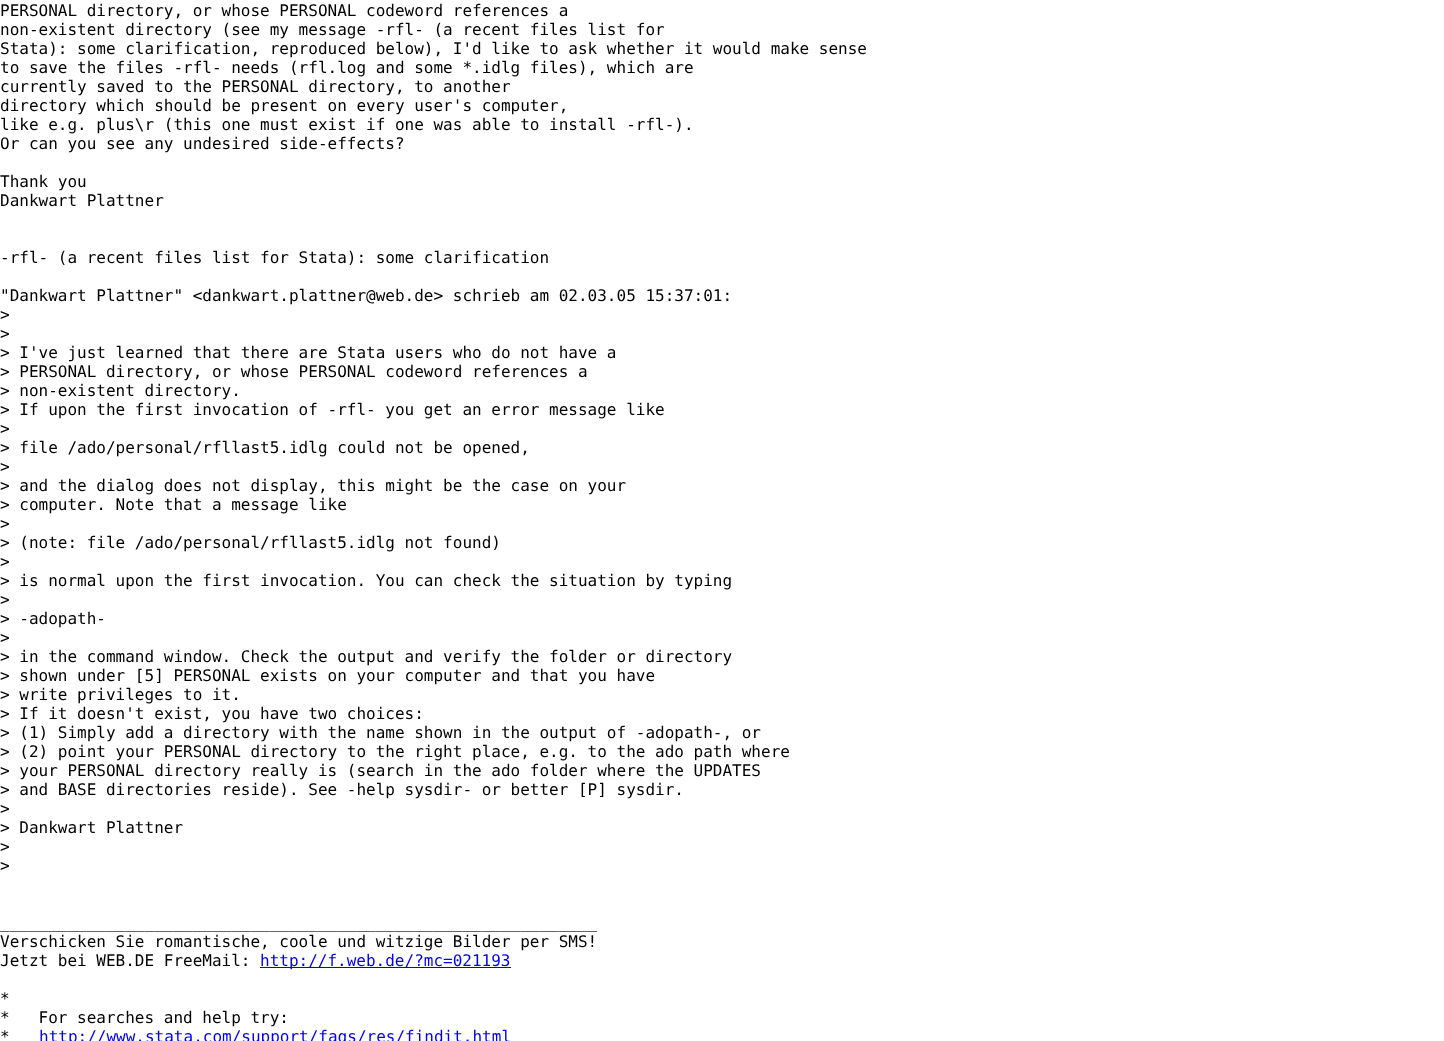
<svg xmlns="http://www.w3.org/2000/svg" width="1444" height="1041">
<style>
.a{font:16px DejaVu Sans Mono;fill:#000}
.b{font:16px DejaVu Sans Mono;fill:#00e}
</style>
<rect width="100%" height="100%" fill="#fff"/>
<path fill="#00e" d="M260 967h251v1H260z"/>
<text class="a" x="0" y="16">PERSONAL directory, or whose PERSONAL codeword references a</text>
<text class="a" x="0" y="35">non-existent directory (see my message -rfl- (a recent files list for</text>
<text class="a" x="0" y="54">Stata): some clarification, reproduced below), I'd like to ask whether it would make sense</text>
<text class="a" x="0" y="73">to save the files -rfl- needs (rfl.log and some *.idlg files), which are</text>
<text class="a" x="0" y="92">currently saved to the PERSONAL directory, to another</text>
<text class="a" x="0" y="111">directory which should be present on every user's computer,</text>
<text class="a" x="0" y="130">like e.g. plus\r (this one must exist if one was able to install -rfl-).</text>
<text class="a" x="0" y="149">Or can you see any undesired side-effects?</text>
<text class="a" x="0" y="187">Thank you</text>
<text class="a" x="0" y="206">Dankwart Plattner</text>
<text class="a" x="0" y="263">-rfl- (a recent files list for Stata): some clarification</text>
<text class="a" x="0" y="301">"Dankwart Plattner" &lt;dankwart.plattner@web.de&gt; schrieb am 02.03.05 15:37:01:</text>
<text class="a" x="0" y="320">&gt;</text>
<text class="a" x="0" y="339">&gt;</text>
<text class="a" x="0" y="358">&gt; I've just learned that there are Stata users who do not have a</text>
<text class="a" x="0" y="377">&gt; PERSONAL directory, or whose PERSONAL codeword references a</text>
<text class="a" x="0" y="396">&gt; non-existent directory.</text>
<text class="a" x="0" y="415">&gt; If upon the first invocation of -rfl- you get an error message like</text>
<text class="a" x="0" y="434">&gt;</text>
<text class="a" x="0" y="453">&gt; file /ado/personal/rfllast5.idlg could not be opened,</text>
<text class="a" x="0" y="472">&gt;</text>
<text class="a" x="0" y="491">&gt; and the dialog does not display, this might be the case on your</text>
<text class="a" x="0" y="510">&gt; computer. Note that a message like</text>
<text class="a" x="0" y="529">&gt;</text>
<text class="a" x="0" y="548">&gt; (note: file /ado/personal/rfllast5.idlg not found)</text>
<text class="a" x="0" y="567">&gt;</text>
<text class="a" x="0" y="586">&gt; is normal upon the first invocation. You can check the situation by typing</text>
<text class="a" x="0" y="605">&gt;</text>
<text class="a" x="0" y="624">&gt; -adopath-</text>
<text class="a" x="0" y="643">&gt;</text>
<text class="a" x="0" y="662">&gt; in the command window. Check the output and verify the folder or directory</text>
<text class="a" x="0" y="681">&gt; shown under [5] PERSONAL exists on your computer and that you have</text>
<text class="a" x="0" y="700">&gt; write privileges to it.</text>
<text class="a" x="0" y="719">&gt; If it doesn't exist, you have two choices:</text>
<text class="a" x="0" y="738">&gt; (1) Simply add a directory with the name shown in the output of -adopath-, or</text>
<text class="a" x="0" y="757">&gt; (2) point your PERSONAL directory to the right place, e.g. to the ado path where</text>
<text class="a" x="0" y="776">&gt; your PERSONAL directory really is (search in the ado folder where the UPDATES</text>
<text class="a" x="0" y="795">&gt; and BASE directories reside). See -help sysdir- or better [P] sysdir.</text>
<text class="a" x="0" y="814">&gt;</text>
<text class="a" x="0" y="833">&gt; Dankwart Plattner</text>
<text class="a" x="0" y="852">&gt;</text>
<text class="a" x="0" y="871">&gt;</text>
<text class="a" x="0" y="928">______________________________________________________________</text>
<text class="a" x="0" y="947">Verschicken Sie romantische, coole und witzige Bilder per SMS!</text>
<text class="a" x="0" y="966">Jetzt bei WEB.DE FreeMail:</text>
<text class="b" x="260" y="966">http://f.web.de/?mc=021193</text>
<text class="a" x="0" y="1004">*</text>
<text class="a" xml:space="preserve" x="0" y="1023">*   For searches and help try:</text>
<text class="a" x="0" y="1042">*</text>
<text class="b" x="39" y="1042">http://www.stata.com/support/faqs/res/findit.html</text>
</svg>
